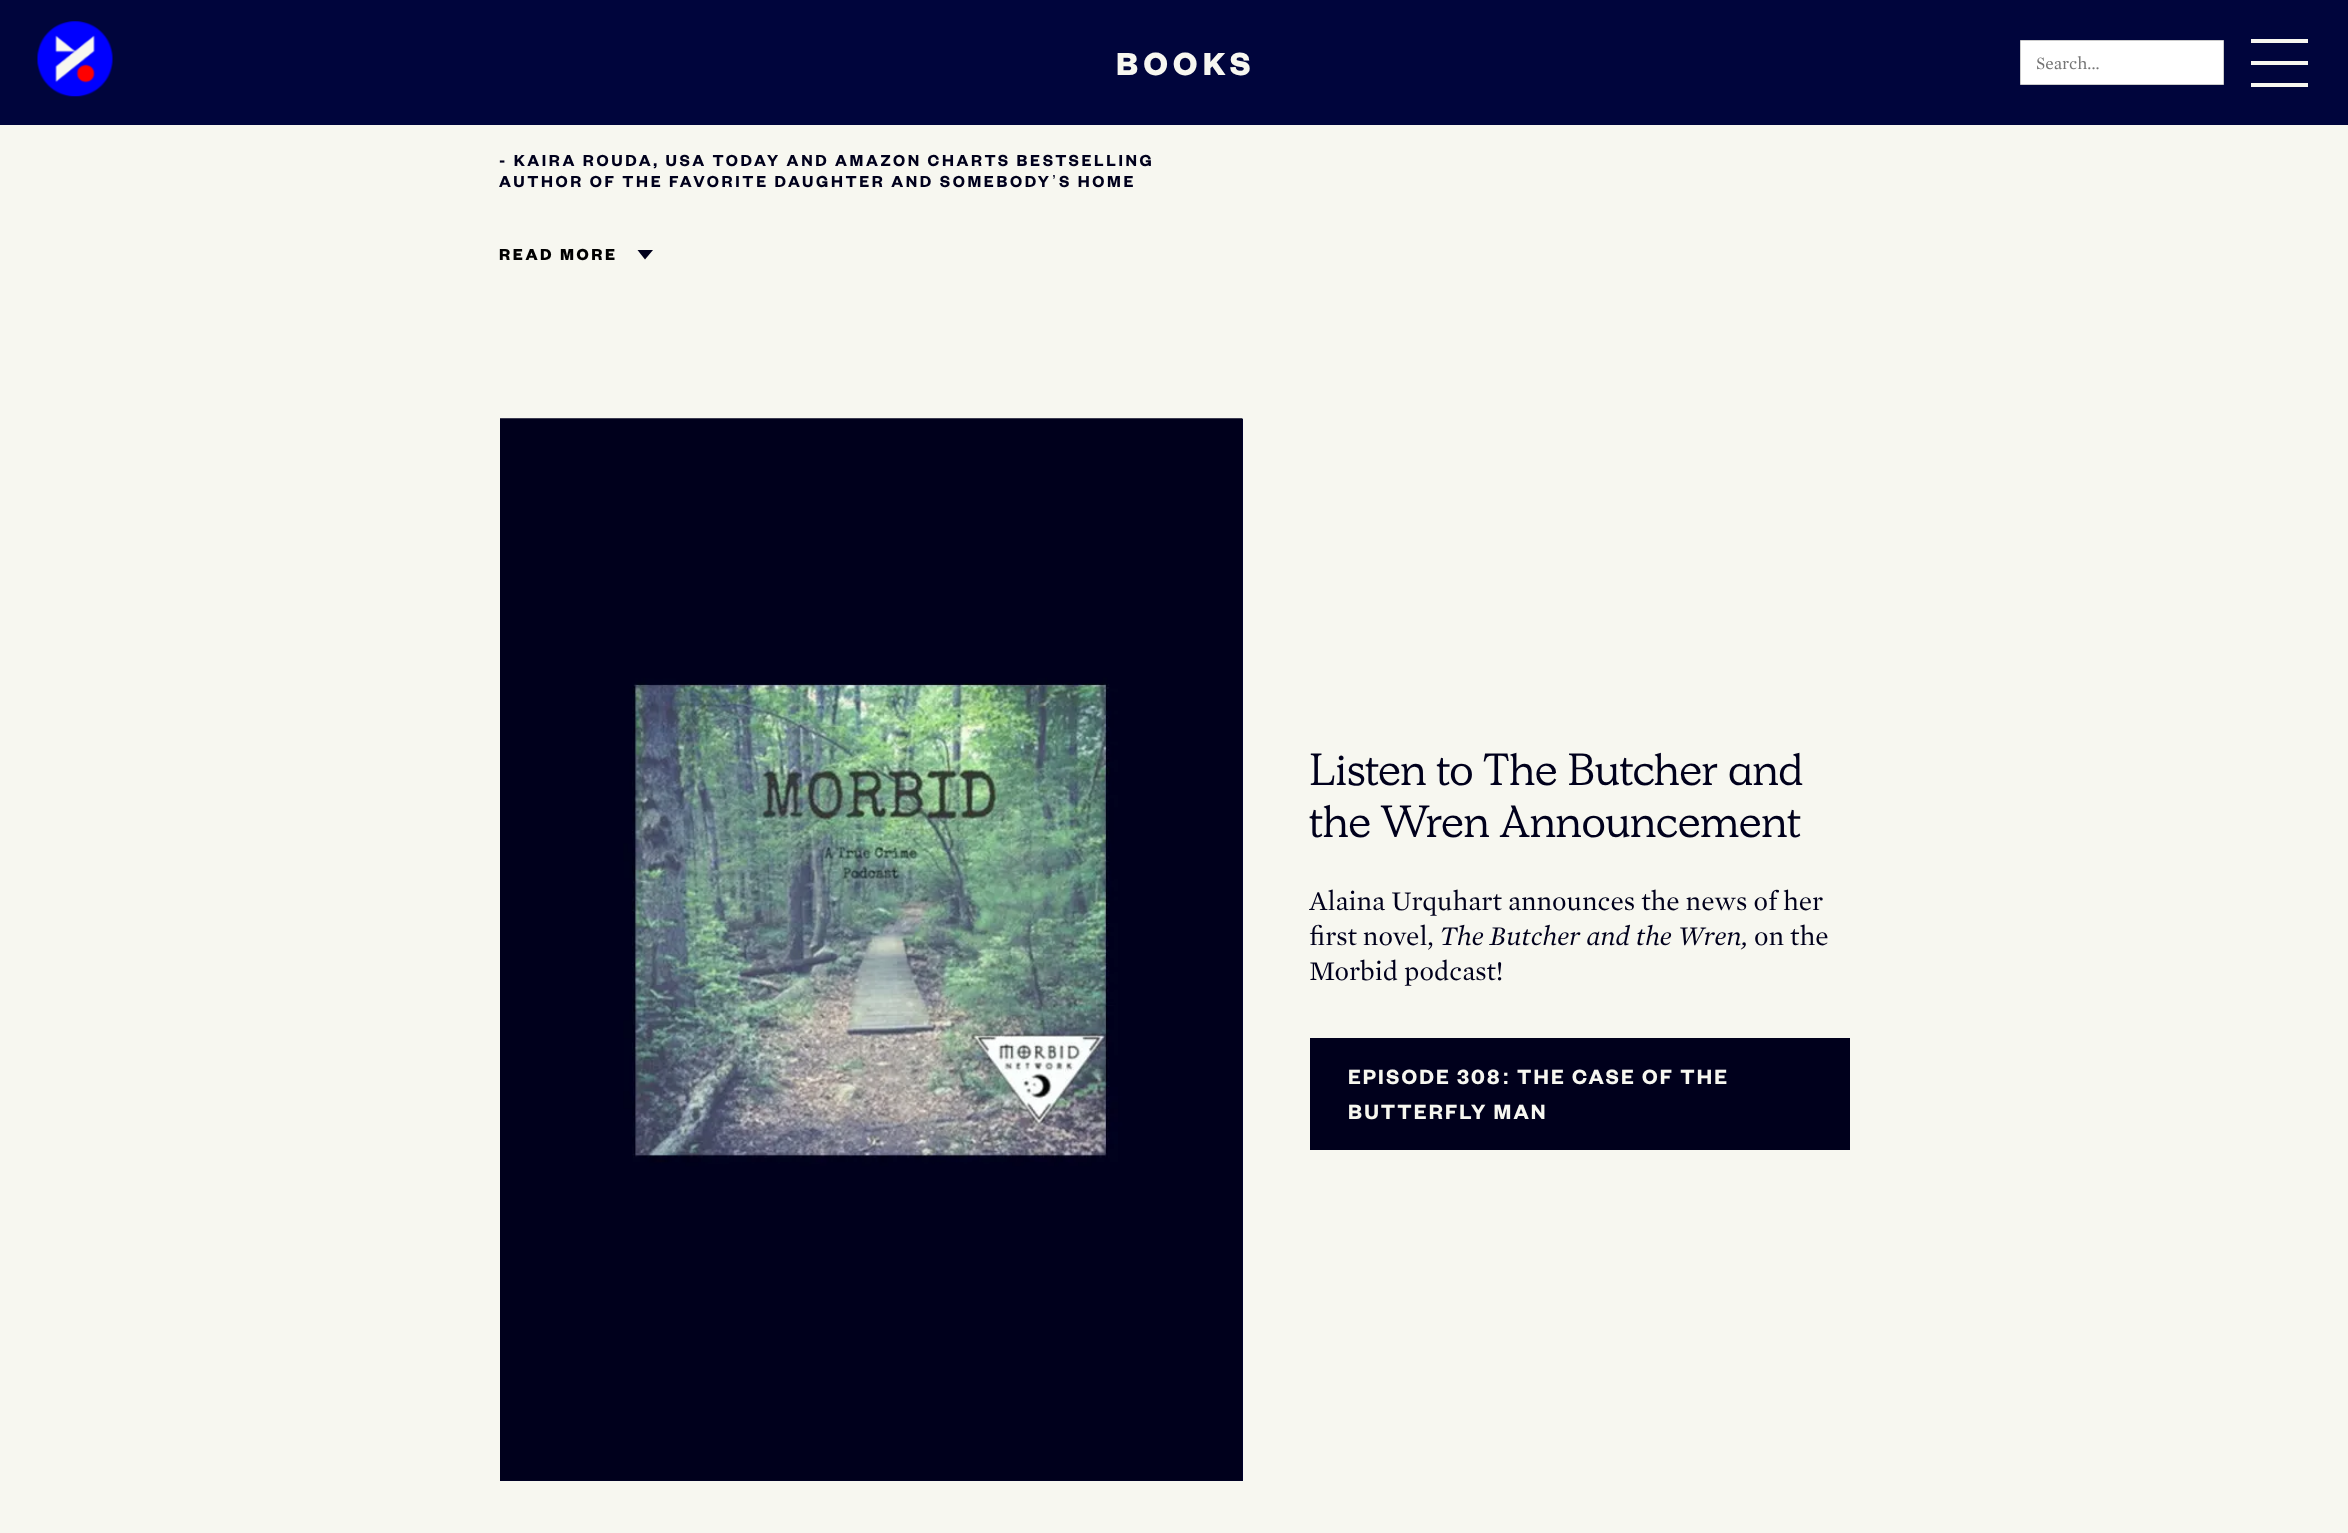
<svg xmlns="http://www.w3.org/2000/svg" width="2348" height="1533">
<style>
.a{font:bold 35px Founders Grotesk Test;letter-spacing:5.25px;fill:#f7f7f0}
.b{font:17.5px 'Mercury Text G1';fill:#757575}
.c{font:600 17.5px Founders Grotesk Test;letter-spacing:2.62px;fill:#00001c}
.d{font:17.5px Liberation Sans;letter-spacing:2.62px;fill:#00001c}
.e{font:bold 17.5px Founders Grotesk Test;letter-spacing:2.62px;fill:#000}
.f{font:45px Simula;letter-spacing:-0.4px;fill:#00001c}
.g{font:27.5px 'Mercury Text G1';fill:#00001c}
.h{font:italic 300 27.5px 'Mercury Text G1';fill:#00001c}
.i{font:600 22.5px Founders Grotesk Test;letter-spacing:2.1px;fill:#f7f7f0}
.j{font:bold 22.5px Liberation Sans;letter-spacing:2.1px;fill:#f7f7f0}
</style>
<rect width="100%" height="100%" fill="#f7f7f0"/>
<path fill="#00053c" d="M0 0h2348v125H0z"/>
<image href="1.png" x="37" y="21" width="76" height="76"/>
<path fill="#fff" stroke="#ccc" d="M2020.5 40.5h203v44H2020.5z"/>
<path fill="#f7f7f0" d="M2251 39h57v4H2251z"/>
<path fill="#f7f7f0" d="M2251 61h57v4H2251z"/>
<path fill="#f7f7f0" d="M2251 83h57v4H2251z"/>
<path fill="#00001c" fill-rule="evenodd" d="M653 250l-8 9.5l-7.5-9.5z"/>
<path fill="#00053c" d="M500 419h743v1062H500z"/>
<image href="2.png" x="500" y="418" width="743" height="1063"/>
<path fill="#00001c" d="M1310 1038h540v112H1310z"/>
<text class="a" x="1116" y="75">BOOKS</text>
<text class="b" x="2036" y="69">Search...</text>
<text class="c" x="499" y="166">- KAIRA ROUDA, USA TODAY AND AMAZON CHARTS BESTSELLING</text>
<text class="c" x="499" y="187">AUTHOR OF THE FAVORITE DAUGHTER AND SOMEBODY</text>
<text class="d" x="1052" y="187">’</text>
<text class="c" x="1059" y="187">S HOME</text>
<text class="e" x="499" y="260">READ MORE</text>
<text class="f" x="1309" y="785">Listen to The Butcher and</text>
<text class="f" x="1309" y="837">the Wren Announcement</text>
<text class="g" x="1309" y="910">Alaina Urquhart announces the news of her</text>
<text class="g" x="1309" y="945">first novel,</text>
<text class="h" x="1440" y="945">The Butcher and the Wren,</text>
<text class="g" x="1754" y="945">on the</text>
<text class="g" x="1309" y="980">Morbid podcast!</text>
<text class="i" x="1348" y="1084">EPISODE 308</text>
<text class="j" x="1502" y="1084">:</text>
<text class="i" x="1517" y="1084">THE CASE OF THE</text>
<text class="i" x="1348" y="1119">BUTTERFLY MAN</text>
</svg>
